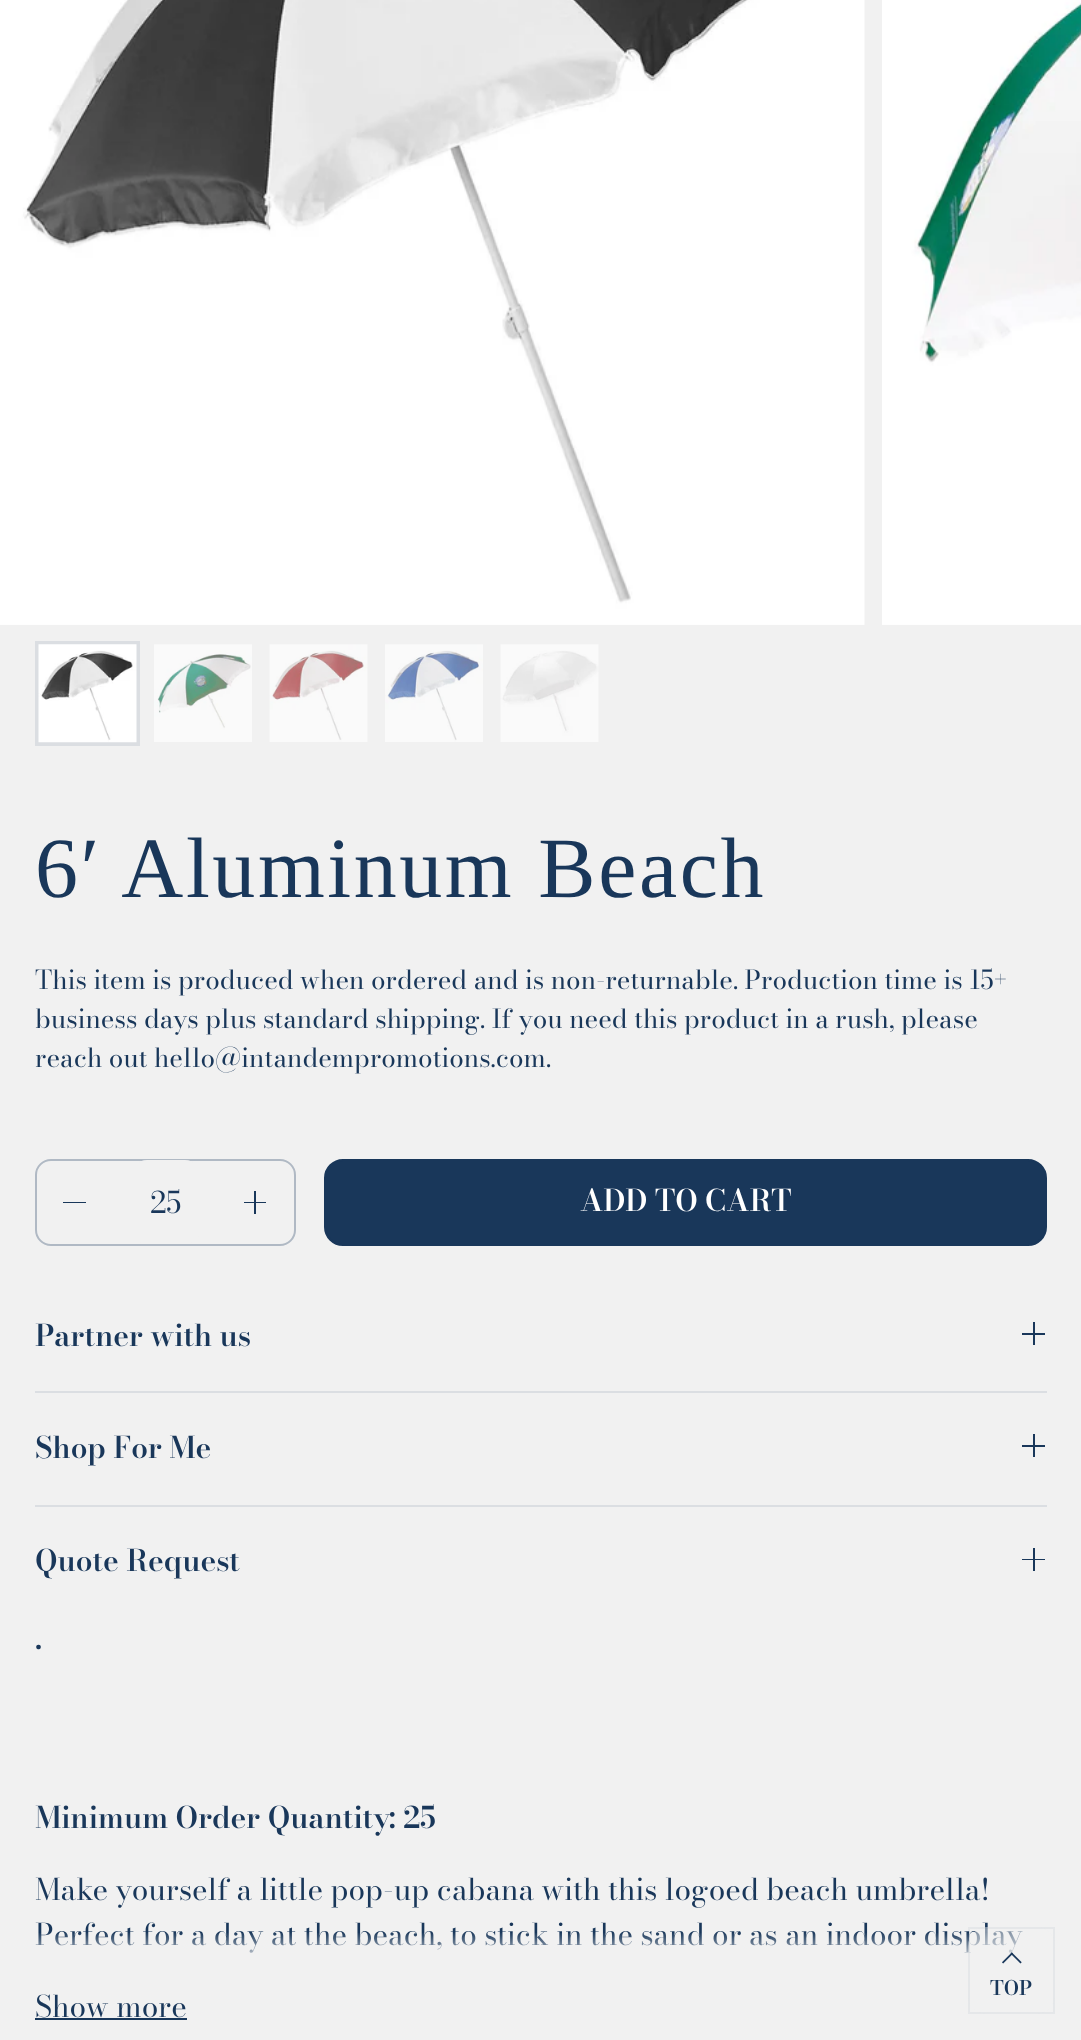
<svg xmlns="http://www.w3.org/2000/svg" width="1081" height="2040">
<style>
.a{font:85.9px Liberation Serif;letter-spacing:2.6px;fill:#19375a}
.b{font:26.05px Bodoni Moda;fill:#19375a}
.c{font:29.75px 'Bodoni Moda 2';fill:#19375a}
.d{font:600 29.75px Bodoni Moda;fill:#fff}
.e{font:600 29.75px Bodoni Moda;fill:#19375a}
.f{font:29.75px 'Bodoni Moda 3';fill:#19375a}
.g{font:600 20px 'Bodoni Moda 2';fill:#19375a}
</style>
<defs>
<linearGradient id="g1" gradientUnits="userSpaceOnUse" x1="541" y1="1967" x2="541" y2="1932"><stop offset="0.1" stop-color="#f1f1f1"/><stop offset="1" stop-color="#f1f1f1" stop-opacity="0"/></linearGradient>
</defs>
<rect width="100%" height="100%" fill="#f1f1f1"/>
<image href="1.png" x="0" y="0" width="865" height="625"/>
<image href="2.png" x="882" y="0" width="199" height="625"/>
<path fill="none" stroke="#dbdee2" stroke-width="4" d="M37 643h101v101H37z"/>
<image href="3.png" x="38" y="644" width="99" height="99"/>
<image href="4.png" x="154" y="644" width="98" height="98"/>
<image href="5.png" x="269" y="644" width="99" height="98"/>
<image href="6.png" x="385" y="644" width="98" height="98"/>
<image href="7.png" x="500" y="644" width="99" height="98"/>
<rect fill="none" stroke="#b0b9c4" stroke-width="2" x="36" y="1160" width="259" height="85" rx="15"/>
<path fill="#19375a" d="M63 1202h23v1H63z"/>
<rect fill="#f1f1f1" x="131" y="1160" width="70" height="84" rx="16"/>
<path fill="#19375a" d="M254 1191h2v23H254z"/>
<path fill="#19375a" d="M244 1202h22v1H244z"/>
<rect fill="#19375a" stroke="#19375a" stroke-width="2" x="325" y="1160" width="721" height="85" rx="18"/>
<path fill="#19375a" d="M1033 1322h2v23H1033z"/>
<path fill="#19375a" d="M1022 1333h23v2H1022z"/>
<path fill="#dbdee2" d="M35 1391h1012v2H35z"/>
<path fill="#19375a" d="M1033 1434h2v23H1033z"/>
<path fill="#19375a" d="M1022 1445h23v2H1022z"/>
<path fill="#dbdee2" d="M35 1505h1012v2H35z"/>
<path fill="#19375a" d="M1033 1548h2v23H1033z"/>
<path fill="#19375a" d="M1022 1559h23v1H1022z"/>
<path fill="#19375a" d="M35 2018h152v2H35z"/>
<text class="a" x="35" y="897">6′ Aluminum Beach</text>
<text class="b" x="35" y="989">This item is produced when ordered and is non-returnable. Production time is 15+</text>
<text class="b" x="35" y="1028">business days plus standard shipping. If you need this product in a rush, please</text>
<text class="b" x="35" y="1067">reach out hello@intandempromotions.com.</text>
<text class="c" x="150" y="1213">25</text>
<text class="d" x="580" y="1211">ADD TO CART</text>
<text class="e" x="35" y="1346">Partner with us</text>
<text class="e" x="35" y="1458">Shop For Me</text>
<text class="e" x="35" y="1571">Quote Request</text>
<text class="e" x="35" y="1649">.</text>
<text class="e" x="35" y="1828">Minimum Order Quantity: 25</text>
<text class="f" x="35" y="1900">Make yourself a little pop-up cabana with this logoed beach umbrella!</text>
<text class="f" x="35" y="1945">Perfect for a day at the beach, to stick in the sand or as an indoor display</text>
<path fill="url(#g1)" d="M35 1933h985v20H35z"/>
<text class="f" x="35" y="2017">Show more</text>
<rect fill="#f1f1f180" x="968" y="1927" width="87" height="87" rx="19"/>
<path fill="none" stroke="#19375a0d" stroke-width="2" d="M969 1928h85v85H969z"/>
<image href="8.png" x="1002" y="1952" width="20" height="12"/>
<text class="g" x="990" y="1995">TOP</text>
</svg>
